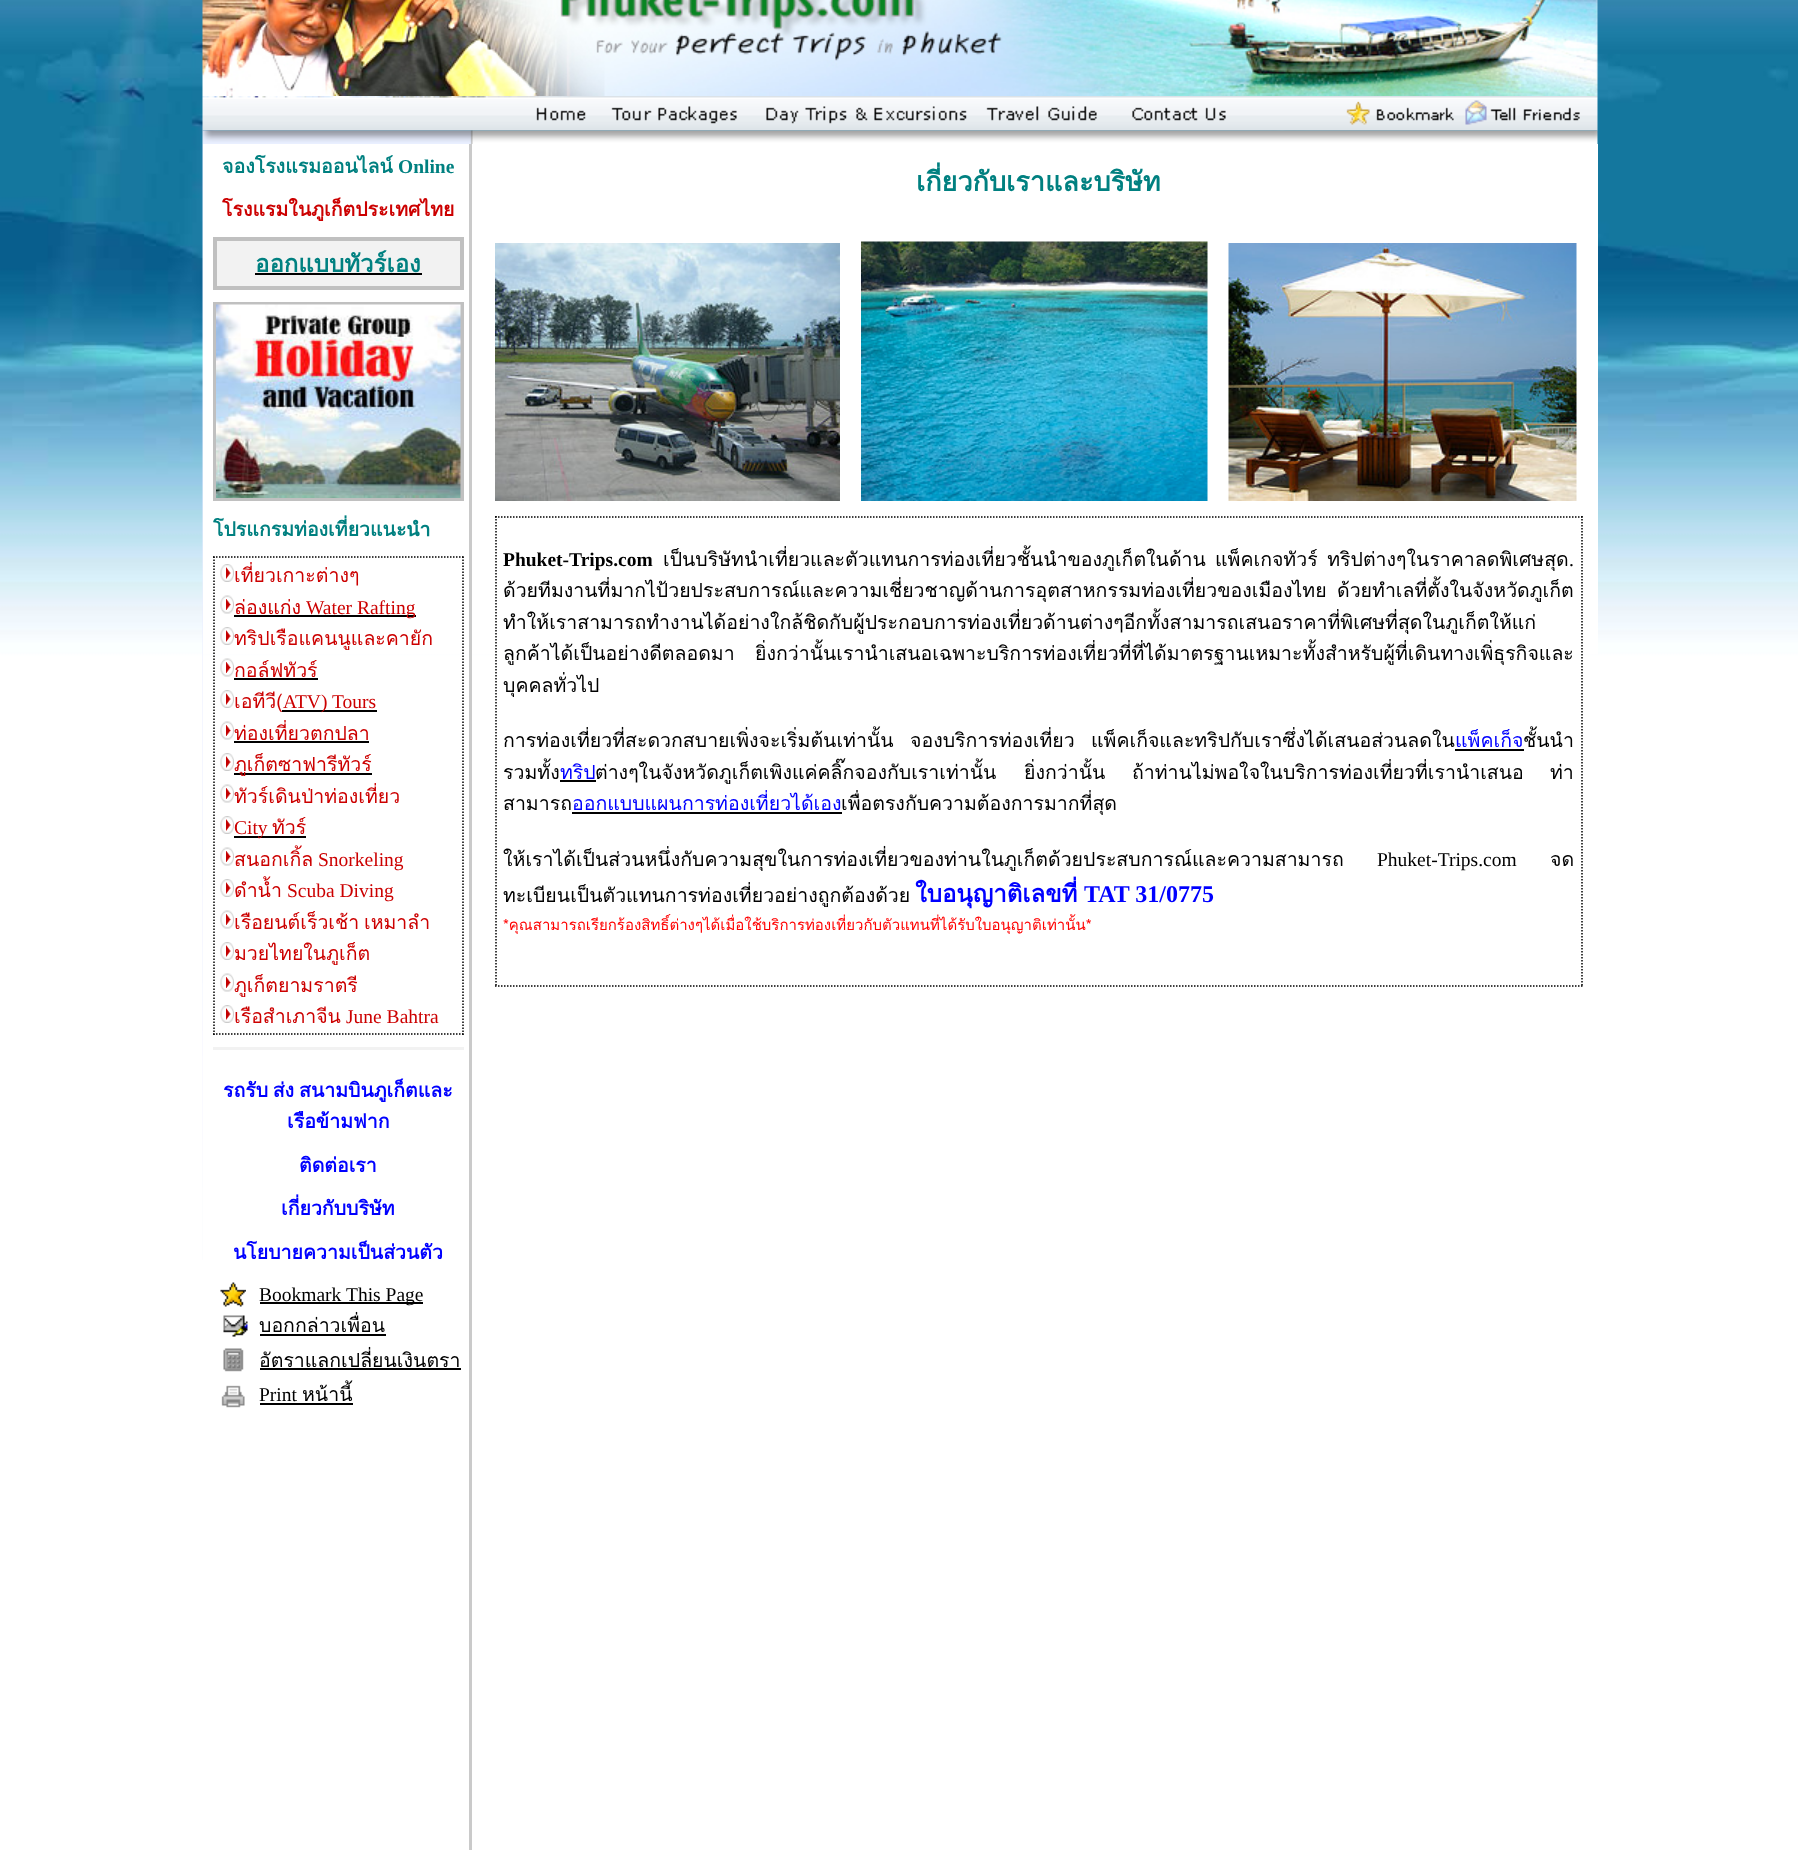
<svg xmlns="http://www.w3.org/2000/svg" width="1798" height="1850">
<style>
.a{font:bold 19.5px Loma;fill:#008080}
.b{font:bold 19.5px Liberation Serif;fill:#008080}
.c{font:bold 19.5px Loma;fill:#c00}
.d{font:bold 24px Loma;fill:#008080}
.e{font:19.5px Loma;fill:#c00}
.f{font:19.5px Liberation Serif;fill:#c00}
.g{font:bold 19.5px Loma;fill:#00f}
.h{font:19.5px Liberation Serif;fill:#000}
.i{font:19.5px Loma;fill:#000}
.j{font:bold 27px Loma;fill:#008080}
.k{font:bold 19.5px Liberation Serif;fill:#000}
.l{font:19.5px Loma;fill:#00f}
.m{font:bold 24px Loma;fill:#00f}
.n{font:bold 24px Liberation Serif;fill:#00f}
.o{font:15px Loma;fill:#f00}
</style>
<rect width="100%" height="100%" fill="#fff"/>
<image href="1.png" x="0" y="0" width="1798" height="1850"/>
<image href="2.png" x="202" y="0" width="1396" height="96"/>
<image href="3.png" x="202" y="96" width="1396" height="35"/>
<image href="4.png" x="202" y="130" width="1396" height="14"/>
<path fill="#fff" d="M472 144h1126v510H472z"/>
<image href="5.png" x="202" y="144" width="1" height="1116"/>
<path fill="#fff" d="M203 144h266v510H203z"/>
<path fill="none" stroke="#c0c0c0" stroke-width="2" d="M214 238h249v51H214z"/>
<path fill="#f2f2f2" stroke="#c0c0c0" stroke-width="2" d="M216 240h245v47H216z"/>
<path fill="#000" d="M255 273h167v2H255z"/>
<path fill="none" stroke="#c0c0c0" stroke-width="2" d="M214 303h249v197H214z"/>
<path fill="none" stroke="#c0c0c0" stroke-width="2" d="M216 304h245v195H216z"/>
<image href="6.png" x="216" y="304" width="245" height="194"/>
<path fill="none" stroke="#000" stroke-width="1.5" stroke-dasharray="1.5 1.5" d="M213 557h250.5"/>
<path fill="none" stroke="#000" stroke-width="1.5" stroke-dasharray="1.5 1.5" d="M463 556.5v478.5"/>
<path fill="none" stroke="#000" stroke-width="1.5" stroke-dasharray="1.5 1.5" d="M213 1034h250.5"/>
<path fill="none" stroke="#000" stroke-width="1.5" stroke-dasharray="1.5 1.5" d="M214 556.5v478.5"/>
<image href="7.png" x="220" y="564" width="14" height="18"/>
<image href="8.png" x="220" y="595" width="14" height="19"/>
<path fill="#000" d="M234 615h182v2H234z"/>
<image href="7.png" x="220" y="627" width="14" height="18"/>
<image href="8.png" x="220" y="658" width="14" height="19"/>
<path fill="#000" d="M234 678h84v2H234z"/>
<image href="7.png" x="220" y="690" width="14" height="18"/>
<path fill="#000" d="M282 710h95v2H282z"/>
<image href="8.png" x="220" y="721" width="14" height="19"/>
<path fill="#000" d="M234 741h135v2H234z"/>
<path fill="#000" d="M234 773h138v2H234z"/>
<image href="7.png" x="220" y="753" width="14" height="18"/>
<image href="8.png" x="220" y="784" width="14" height="19"/>
<image href="7.png" x="220" y="816" width="14" height="18"/>
<path fill="#000" d="M234 836h72v2H234z"/>
<image href="8.png" x="220" y="847" width="14" height="19"/>
<image href="9.png" x="220" y="879" width="14" height="18"/>
<image href="8.png" x="220" y="910" width="14" height="19"/>
<image href="10.png" x="220" y="942" width="14" height="18"/>
<image href="8.png" x="220" y="973" width="14" height="19"/>
<image href="7.png" x="220" y="1005" width="14" height="18"/>
<path fill="#f2f2f2" d="M213 1047h251v3H213z"/>
<image href="11.png" x="220" y="1282" width="26" height="25"/>
<path fill="#000" d="M260 1302h163v2H260z"/>
<image href="12.png" x="223" y="1315" width="25" height="22"/>
<path fill="#000" d="M260 1334h126v2H260z"/>
<image href="13.png" x="223" y="1348" width="21" height="24"/>
<path fill="#000" d="M260 1368h201v2H260z"/>
<image href="14.png" x="221" y="1385" width="24" height="23"/>
<path fill="#000" d="M260 1403h93v2H260z"/>
<path fill="#cacaca" d="M469 144h3v1706H469z"/>
<image href="15.png" x="495" y="243" width="345" height="258"/>
<image href="16.png" x="861" y="241" width="347" height="260"/>
<image href="17.png" x="1228" y="243" width="349" height="258"/>
<path fill="none" stroke="#000" stroke-width="1.5" stroke-dasharray="1.5 1.5" d="M495 517h1087.5"/>
<path fill="none" stroke="#000" stroke-width="1.5" stroke-dasharray="1.5 1.5" d="M1582 516v471"/>
<path fill="none" stroke="#000" stroke-width="1.5" stroke-dasharray="1.5 1.5" d="M495 986h1087.5"/>
<path fill="none" stroke="#000" stroke-width="1.5" stroke-dasharray="1.5 1.5" d="M496 516v471"/>
<path fill="#000" d="M1455 749h69v2H1455z"/>
<path fill="#000" d="M560 780h36v2H560z"/>
<path fill="#000" d="M572 812h270v2H572z"/>
<text class="a" x="222" y="173">จองโรงแรมออนไลน์</text>
<text class="b" x="398" y="173">Online</text>
<text class="c" x="222" y="216">โรงแรมในภูเก็ตประเทศไทย</text>
<text class="d" x="255" y="272">ออกแบบทัวร์เอง</text>
<text class="a" x="213" y="536">โปรแกรมท่องเที่ยวแนะนำ</text>
<text class="e" x="234" y="582">เที่ยวเกาะต่างๆ</text>
<text class="e" x="234" y="614">ล่องแก่ง</text>
<text class="f" x="306" y="614">Water Rafting</text>
<text class="e" x="234" y="645">ทริปเรือแคนนูและคายัก</text>
<text class="e" x="234" y="677">กอล์ฟทัวร์</text>
<text class="e" x="234" y="708">เอทีวี(</text>
<text class="f" x="283" y="708">ATV)</text>
<text class="f" x="332" y="708">Tours</text>
<text class="e" x="234" y="740">ท่องเที่ยวตกปลา</text>
<text class="e" x="234" y="771">ภูเก็ตซาฟารีทัวร์</text>
<text class="e" x="234" y="803">ทัวร์เดินป่าท่องเที่ยว</text>
<text class="f" x="234" y="834">City</text>
<text class="e" x="272" y="834">ทัวร์</text>
<text class="e" x="234" y="866">สนอกเกิ้ล</text>
<text class="f" x="318" y="866">Snorkeling</text>
<text class="e" x="234" y="897">ดำน้ำ</text>
<text class="f" x="287" y="897">Scuba Diving</text>
<text class="e" x="234" y="929">เรือยนต์เร็วเช้า</text>
<text class="e" x="364" y="929">เหมาลำ</text>
<text class="e" x="234" y="960">มวยไทยในภูเก็ต</text>
<text class="e" x="234" y="992">ภูเก็ตยามราตรี</text>
<text class="e" x="234" y="1023">เรือสำเภาจีน</text>
<text class="f" x="346" y="1023">June Bahtra</text>
<text class="g" x="223" y="1097" word-spacing="-2">รถรับ ส่ง</text>
<text class="g" x="299" y="1097">สนามบินภูเก็ตและ</text>
<text class="g" x="287" y="1128">เรือข้ามฟาก</text>
<text class="g" x="299" y="1172">ติดต่อเรา</text>
<text class="g" x="281" y="1215">เกี่ยวกับบริษัท</text>
<text class="g" x="233" y="1259">นโยบายความเป็นส่วนตัว</text>
<text class="h" x="259" y="1301">Bookmark</text>
<text class="h" x="346" y="1301">This Page</text>
<text class="i" x="259" y="1332">บอกกล่าวเพื่อน</text>
<text class="i" x="259" y="1367">อัตราแลกเปลี่ยนเงินตรา</text>
<text class="h" x="259" y="1401">Print</text>
<text class="i" x="302" y="1401">หน้านี้</text>
<text class="j" x="916" y="191">เกี่ยวกับเราและบริษัท</text>
<text class="k" x="503" y="566">Phuket-Trips.com</text>
<text class="i" x="663" y="566">เป็นบริษัทนำเที่ยวและตัวแทนการท่องเที่ยวชั้นนำของภูเก็ตในด้าน</text>
<text class="i" x="1215" y="566" word-spacing="3">แพ็คเกจทัวร์ ทริปต่างๆในราคาลดพิเศษสุด</text>
<text class="h" x="1569" y="566">.</text>
<text class="i" x="503" y="597">ด้วยทีมงานที่มากไป้วยประสบการณ์และความเชี่ยวชาญด้านการอุตสาหกรรมท่องเที่ยวของเมืองไทย</text>
<text class="i" x="1337" y="597">ด้วยทำเลที่ตั้งในจังหวัดภูเก็ต</text>
<text class="i" x="503" y="629">ทำให้เราสามารถทำงานได้อย่างใกล้ชิดกับผู้ประกอบการท่องเที่ยวด้านต่างๆอีกทั้งสามารถเสนอราคาที่พิเศษที่สุดในภูเก็ตให้แก่</text>
<text class="i" x="503" y="660">ลูกค้าได้เป็นอย่างดีตลอดมา</text>
<text class="i" x="755" y="660">ยิ่งกว่านั้นเรานำเสนอเฉพาะบริการท่องเที่ยวที่ที่ได้มาตรฐานเหมาะทั้งสำหรับผู้ที่เดินทางเพิ่ธุรกิจและ</text>
<text class="i" x="503" y="692">บุคคลทั่วไป</text>
<text class="i" x="503" y="747">การท่องเที่ยวที่สะดวกสบายเพิ่งจะเริ่มต้นเท่านั้น</text>
<text class="i" x="910" y="747">จองบริการท่องเที่ยว</text>
<text class="i" x="1091" y="747">แพ็คเก็จและทริปกับเราซึ่งได้เสนอส่วนลดใน</text>
<text class="l" x="1455" y="747">แพ็คเก็จ</text>
<text class="i" x="1523" y="747">ชั้นนำ</text>
<text class="i" x="503" y="779">รวมทั้ง</text>
<text class="l" x="560" y="779">ทริป</text>
<text class="i" x="595" y="779">ต่างๆในจังหวัดภูเก็ตเพิงแค่คลิ๊กจองกับเราเท่านั้น</text>
<text class="i" x="1024" y="779">ยิ่งกว่านั้น</text>
<text class="i" x="1132" y="779">ถ้าท่านไม่พอใจในบริการท่องเที่ยวที่เรานำเสนอ</text>
<text class="i" x="1550" y="779">ท่า</text>
<text class="i" x="503" y="810">สามารถ</text>
<text class="l" x="572" y="810">ออกแบบแผนการท่องเที่ยวได้เอง</text>
<text class="i" x="841" y="810">เพื่อตรงกับความต้องการมากที่สุด</text>
<text class="i" x="503" y="866">ให้เราได้เป็นส่วนหนึ่งกับความสุขในการท่องเที่ยวของท่านในภูเก็ตด้วยประสบการณ์และความสามารถ</text>
<text class="h" x="1377" y="866">Phuket-Trips.com</text>
<text class="i" x="1550" y="866">จด</text>
<text class="i" x="503" y="902">ทะเบียนเป็นตัวแทนการท่องเที่ยวอย่างถูกต้องด้วย</text>
<text class="m" x="915" y="902">ใบอนุญาติเลขที่</text>
<text class="n" x="1084" y="902">TAT 31/0775</text>
<text class="o" x="503" y="930">*คุณสามารถเรียกร้องสิทธิ์ต่างๆได้เมื่อใช้บริการท่องเที่ยวกับตัวแทนที่ได้รับใบอนุญาติเท่านั้น*</text>
</svg>
